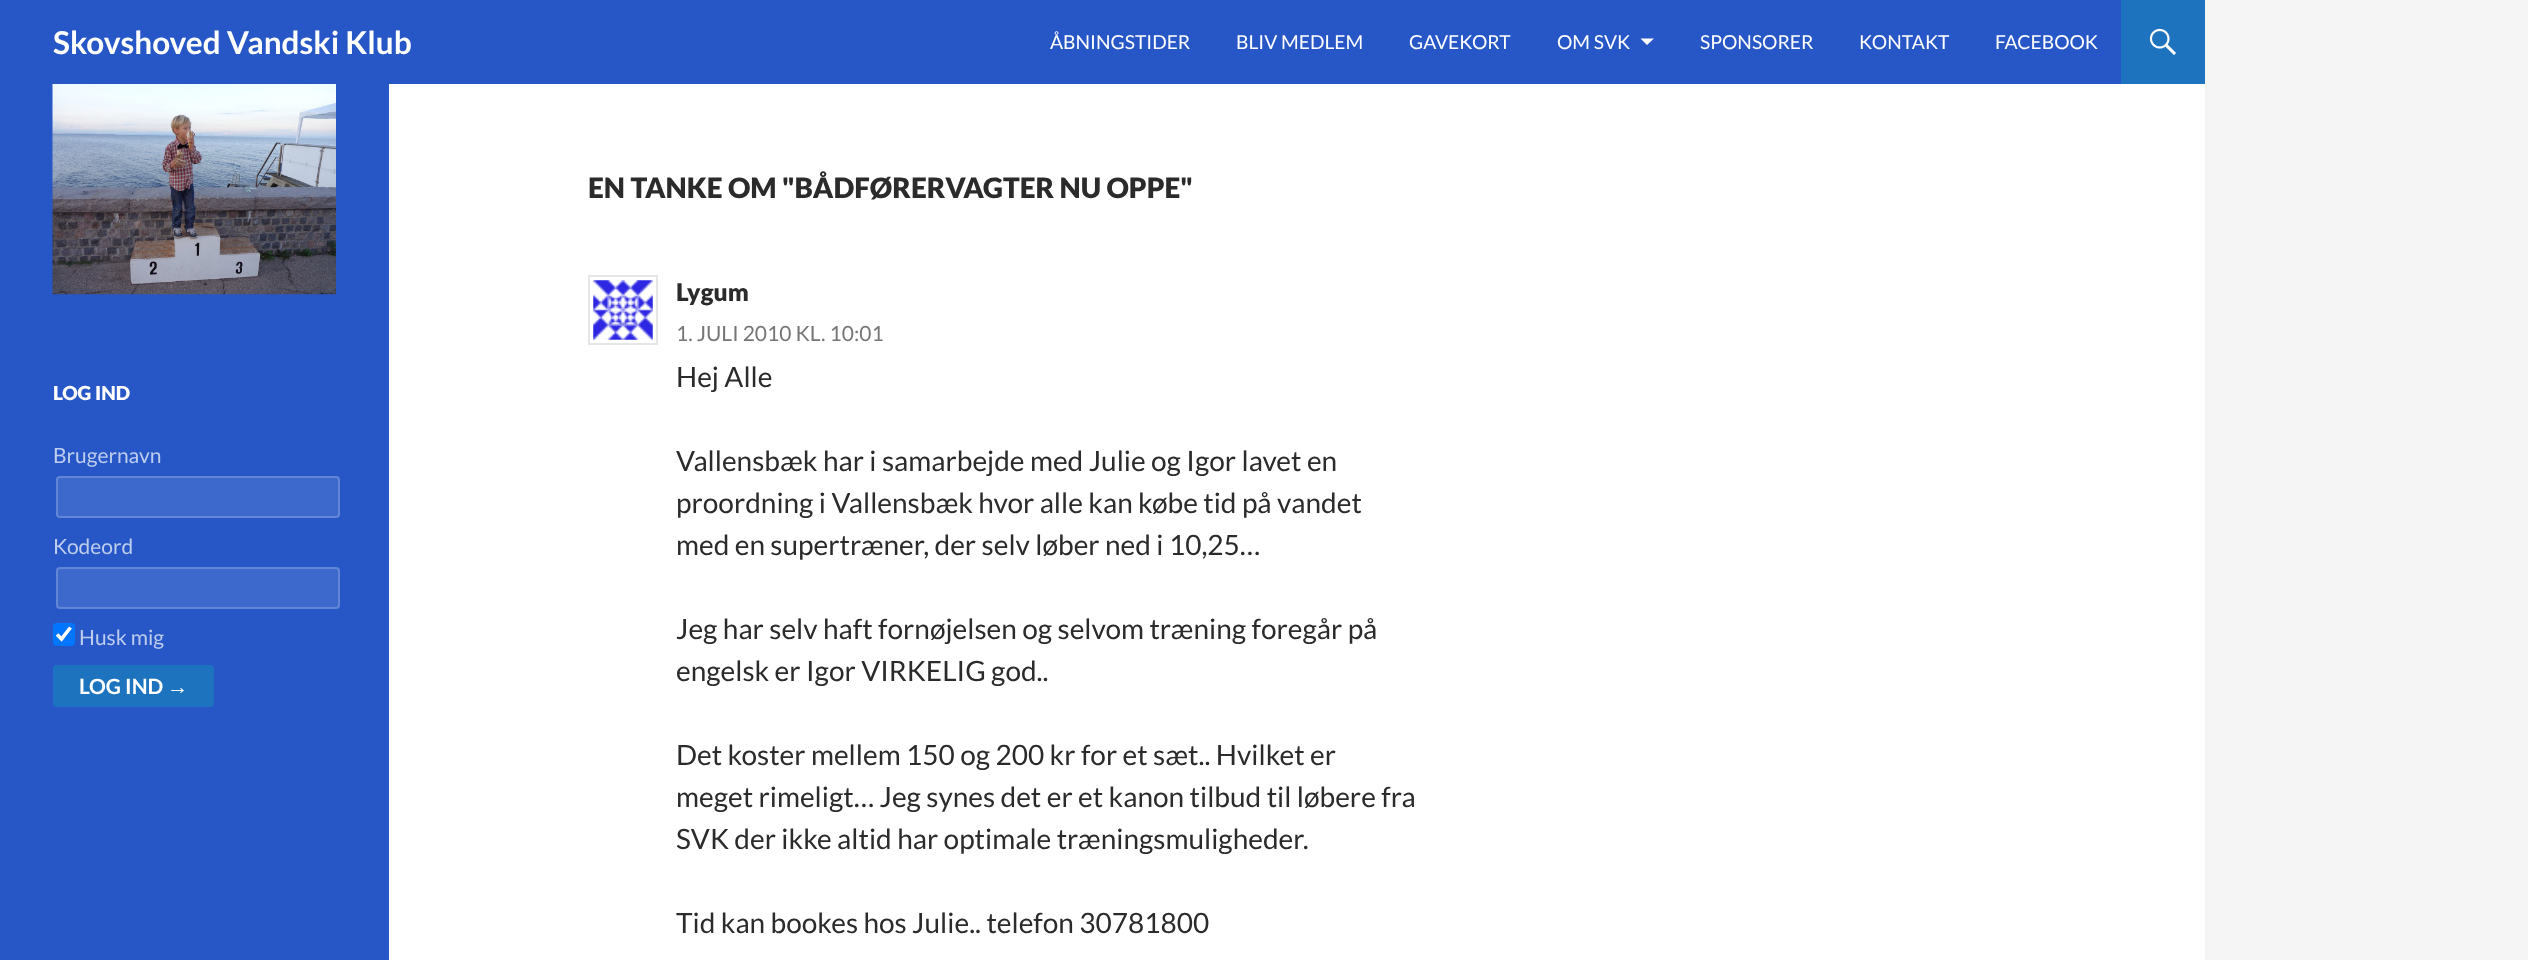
<svg xmlns="http://www.w3.org/2000/svg" width="2528" height="960">
<style>
.a{font:bold 31.5px Lato;fill:#fff}
.b{font:19.25px Lato;fill:#fff}
.c{font:900 19.25px Lato;fill:#fff}
.d{font:21px Lato;fill:#becdee}
.e{font:bold 21px Lato;fill:#fff}
.f{font:bold 21px Liberation Sans;fill:#fff}
.g{font:900 28px Lato;fill:#2b2b2b}
.h{font:900 24.5px Lato;fill:#2b2b2b}
.i{font:21px Lato;fill:#767676}
.j{font:28px Lato;fill:#2b2b2b}
</style>
<rect width="100%" height="100%" fill="#f5f5f5"/>
<path fill="#fff" d="M389 84h1816v876H389z"/>
<path fill="#2757c6" d="M0 0h2121v84H0z"/>
<path fill="#fff" d="M1640.5 38.5l6.5 6.5l7-6.5z"/>
<path fill="#1e73be" d="M2121 0h84v84H2121z"/>
<image href="1.png" x="2149" y="28" width="27" height="27"/>
<path fill="#2757c6" d="M0 84h389v876H0z"/>
<image href="2.png" x="52" y="84" width="284" height="211"/>
<rect fill="#3d68cc" x="56" y="476" width="284" height="42" rx="4"/>
<rect fill="none" stroke="#ffffff33" stroke-width="2" x="57" y="477" width="282" height="40" rx="3"/>
<rect fill="#3d68cc" x="56" y="567" width="284" height="42" rx="4"/>
<rect fill="none" stroke="#ffffff33" stroke-width="2" x="57" y="568" width="282" height="40" rx="3"/>
<rect fill="#0075ff" x="53" y="623" width="22" height="23" rx="4"/>
<path fill="none" stroke="#fff" stroke-width="3.6" d="M57 634.5l4.5 4.5l9-11.5"/>
<rect fill="#1e73be" x="53" y="665" width="161" height="42" rx="4"/>
<path fill="none" stroke="#e6e6e6" stroke-width="2" d="M589 276h68v68H589z"/>
<image href="3.png" x="593" y="280" width="60" height="60"/>
<text class="a" x="53" y="54">Skovshoved Vandski Klub</text>
<text class="b" x="1050" y="49">ÅBNINGSTIDER</text>
<text class="b" x="1236" y="49">BLIV MEDLEM</text>
<text class="b" x="1409" y="49">GAVEKORT</text>
<text class="b" x="1557" y="49">OM SVK</text>
<text class="b" x="1700" y="49">SPONSORER</text>
<text class="b" x="1859" y="49">KONTAKT</text>
<text class="b" x="1995" y="49">FACEBOOK</text>
<text class="c" x="53" y="400">LOG IND</text>
<text class="d" x="53" y="463">Brugernavn</text>
<text class="d" x="53" y="554">Kodeord</text>
<text class="d" x="79" y="645">Husk mig</text>
<text class="e" x="79" y="694">LOG IND</text>
<text class="f" x="167" y="694">→</text>
<text class="g" x="588" y="198">EN TANKE OM "BÅDFØRERVAGTER NU OPPE"</text>
<text class="h" x="676" y="301">Lygum</text>
<text class="i" x="676" y="341">1. JULI 2010 KL. 10:01</text>
<text class="j" x="676" y="387">Hej Alle</text>
<text class="j" x="676" y="471">Vallensbæk har i samarbejde med Julie og Igor lavet en</text>
<text class="j" x="676" y="513">proordning i Vallensbæk hvor alle kan købe tid på vandet</text>
<text class="j" x="676" y="555">med en supertræner, der selv løber ned i 10,25…</text>
<text class="j" x="676" y="639">Jeg har selv haft fornøjelsen og selvom træning foregår på</text>
<text class="j" x="676" y="681">engelsk er Igor VIRKELIG god..</text>
<text class="j" x="676" y="765">Det koster mellem 150 og 200 kr for et sæt.. Hvilket er</text>
<text class="j" x="676" y="807">meget rimeligt… Jeg synes det er et kanon tilbud til løbere fra</text>
<text class="j" x="676" y="849">SVK der ikke altid har optimale træningsmuligheder.</text>
<text class="j" x="676" y="933">Tid kan bookes hos Julie.. telefon 30781800</text>
</svg>
